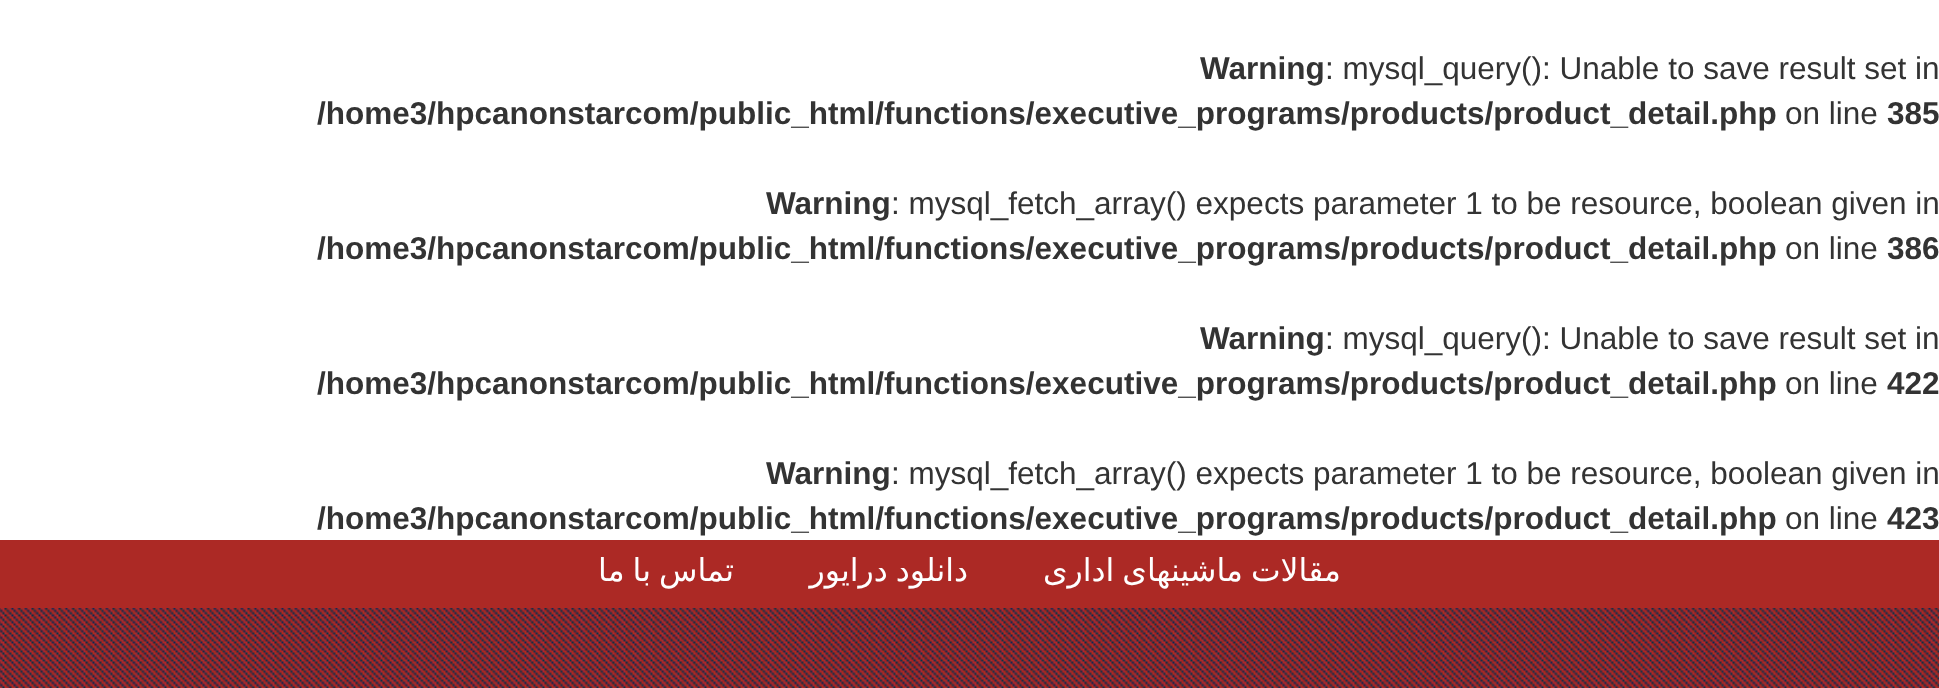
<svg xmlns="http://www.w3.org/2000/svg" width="1939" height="688">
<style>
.a{font:bold 31.5px Liberation Sans;fill:#333}
.b{font:31.5px Liberation Sans;fill:#333}
.c{font:31.5px DejaVu Sans;direction:rtl;fill:#fff}
</style>
<rect width="100%" height="100%" fill="#fff"/>
<image href="1.png" x="0" y="608" width="1939" height="80"/>
<path fill="#ac2925" d="M0 540h1939v68H0z"/>
<text class="a" x="1200" y="79">Warning</text>
<text class="b" x="1325" y="79">: mysql_query(): Unable to save result set in</text>
<text class="a" x="317" y="124">/home3/hpcanonstarcom/public_html/functions/executive_programs/products/product_detail.php</text>
<text class="b" x="1785" y="124">on line</text>
<text class="a" x="1887" y="124">385</text>
<text class="a" x="766" y="214">Warning</text>
<text class="b" x="891" y="214">: mysql_fetch_array() expects parameter 1 to be resource, boolean given in</text>
<text class="a" x="317" y="259">/home3/hpcanonstarcom/public_html/functions/executive_programs/products/product_detail.php</text>
<text class="b" x="1785" y="259">on line</text>
<text class="a" x="1887" y="259">386</text>
<text class="a" x="1200" y="349">Warning</text>
<text class="b" x="1325" y="349">: mysql_query(): Unable to save result set in</text>
<text class="a" x="317" y="394">/home3/hpcanonstarcom/public_html/functions/executive_programs/products/product_detail.php</text>
<text class="b" x="1785" y="394">on line</text>
<text class="a" x="1887" y="394">422</text>
<text class="a" x="766" y="484">Warning</text>
<text class="b" x="891" y="484">: mysql_fetch_array() expects parameter 1 to be resource, boolean given in</text>
<text class="a" x="317" y="529">/home3/hpcanonstarcom/public_html/functions/executive_programs/products/product_detail.php</text>
<text class="b" x="1785" y="529">on line</text>
<text class="a" x="1887" y="529">423</text>
<text class="c" x="734" y="581" word-spacing="-2">تماس با ما</text>
<text class="c" x="968" y="581" word-spacing="-2">دانلود درایور</text>
<text class="c" x="1341" y="581" word-spacing="-2">مقالات ماشینهای اداری</text>
</svg>
